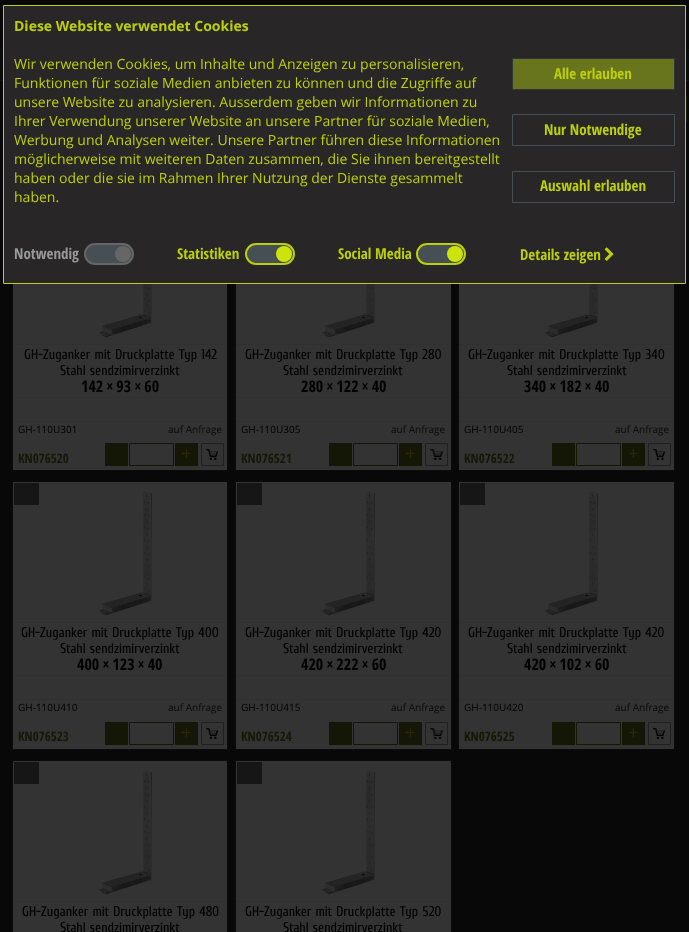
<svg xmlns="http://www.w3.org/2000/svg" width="689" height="932">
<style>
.a{font:bold 14px Open Sans;fill:#bccf0a}
.b{font:14px Open Sans;fill:#bccf0a}
.c{font:bold 15px Open Sans Condensed;fill:#bccf0a}
.d{font:bold 15px Open Sans Condensed;fill:#999}
.e{font:14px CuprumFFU;fill:#000}
.f{font:bold 16px Open Sans Condensed;fill:#000}
.g{font:10px Open Sans;fill:#000}
.h{font:10px Open Sans;fill:#0a0a0a}
.i{font:bold 13px Open Sans Condensed;fill:#151706}
.j{font:19px Open Sans;fill:#262902}
</style>
<rect width="100%" height="100%" fill="#080808"/>
<path fill="#0e1011" d="M0 49h689v1H0z"/>
<path fill="#0a0b0b" d="M0 51h689v29H0z"/>
<path fill="#0e1011" d="M0 80h689v1H0z"/>
<path fill="#333" d="M13 284h214v186H13z"/>
<path fill="none" stroke="#0a0b0b" d="M12.5 203.5h215v267H12.5z"/>
<path fill="#333" d="M236 284h215v186H236z"/>
<path fill="none" stroke="#0a0b0b" d="M235.5 203.5h216v267H235.5z"/>
<path fill="#333" d="M459 284h215v186H459z"/>
<path fill="none" stroke="#0a0b0b" d="M458.5 203.5h216v267H458.5z"/>
<path fill="#282627" stroke="#bccf0a" d="M3.5 5.5h682v278H3.5z"/>
<path fill="#69751c" stroke="#313639" d="M512.5 58.5h162v31H512.5z"/>
<path fill="none" stroke="#454f54" d="M512.5 114.5h162v31H512.5z"/>
<path fill="none" stroke="#454f54" d="M512.5 171.5h162v31H512.5z"/>
<rect fill="#454f54" stroke="#666" stroke-width="2" x="85" y="244" width="48" height="20" rx="10"/>
<circle fill="#666" cx="123" cy="254" r="8"/>
<rect fill="#454f54" stroke="#bccf0a" stroke-width="2" x="246" y="244" width="48" height="20" rx="10"/>
<circle fill="#cde40c" cx="284" cy="254" r="8"/>
<rect fill="#454f54" stroke="#bccf0a" stroke-width="2" x="417" y="244" width="48" height="20" rx="10"/>
<circle fill="#cde40c" cx="455" cy="254" r="8"/>
<image href="1.png" x="604" y="247" width="10" height="14"/>
<path fill="#151706" d="M686 96h1v27H686z"/>
<image href="2.png" x="98" y="284" width="54" height="54"/>
<path fill="#303030" d="M13 344h214v1H13z"/>
<path fill="#303030" d="M13 397h214v1H13z"/>
<path fill="#303030" d="M13 421h214v1H13z"/>
<path fill="#151706" d="M105 443h23v23H105z"/>
<path fill="none" stroke="#151706" d="M129.5 443.5h44v22H129.5z"/>
<path fill="#151706" d="M175 443h23v23H175z"/>
<image href="3.png" x="206" y="449" width="12" height="11"/>
<path fill="none" stroke="#202020" d="M201.5 443.5h22v22H201.5z"/>
<image href="2.png" x="321" y="284" width="54" height="54"/>
<path fill="#303030" d="M236 344h215v1H236z"/>
<path fill="#303030" d="M236 397h215v1H236z"/>
<path fill="#303030" d="M236 421h215v1H236z"/>
<path fill="#151706" d="M329 443h23v23H329z"/>
<path fill="none" stroke="#151706" d="M353.5 443.5h44v22H353.5z"/>
<path fill="#151706" d="M399 443h23v23H399z"/>
<image href="4.png" x="430" y="449" width="13" height="11"/>
<path fill="none" stroke="#202020" d="M425.5 443.5h22v22H425.5z"/>
<image href="2.png" x="544" y="284" width="54" height="54"/>
<path fill="#303030" d="M459 344h215v1H459z"/>
<path fill="#303030" d="M459 397h215v1H459z"/>
<path fill="#303030" d="M459 421h215v1H459z"/>
<path fill="#151706" d="M552 443h23v23H552z"/>
<path fill="none" stroke="#151706" d="M576.5 443.5h44v22H576.5z"/>
<path fill="#151706" d="M622 443h23v23H622z"/>
<image href="3.png" x="653" y="449" width="12" height="11"/>
<path fill="none" stroke="#202020" d="M648.5 443.5h22v22H648.5z"/>
<path fill="#333" stroke="#0a0b0b" d="M12.5 481.5h215v268H12.5z"/>
<path fill="#161616" d="M14 483h25v22H14z"/>
<image href="5.png" x="98" y="492" width="54" height="124"/>
<path fill="#303030" d="M13 622h214v1H13z"/>
<path fill="#303030" d="M13 675h214v1H13z"/>
<path fill="#303030" d="M13 699h214v1H13z"/>
<path fill="#151706" d="M105 722h23v23H105z"/>
<path fill="none" stroke="#151706" d="M129.5 722.5h44v22H129.5z"/>
<path fill="#151706" d="M175 722h23v23H175z"/>
<image href="3.png" x="206" y="728" width="12" height="11"/>
<path fill="none" stroke="#202020" d="M201.5 722.5h22v22H201.5z"/>
<path fill="#333" stroke="#0a0b0b" d="M235.5 481.5h216v268H235.5z"/>
<path fill="#161616" d="M237 483h25v22H237z"/>
<image href="5.png" x="321" y="492" width="54" height="124"/>
<path fill="#303030" d="M236 622h215v1H236z"/>
<path fill="#303030" d="M236 675h215v1H236z"/>
<path fill="#303030" d="M236 699h215v1H236z"/>
<path fill="#151706" d="M329 722h23v23H329z"/>
<path fill="none" stroke="#151706" d="M353.5 722.5h44v22H353.5z"/>
<path fill="#151706" d="M399 722h23v23H399z"/>
<image href="4.png" x="430" y="728" width="13" height="11"/>
<path fill="none" stroke="#202020" d="M425.5 722.5h22v22H425.5z"/>
<path fill="#333" stroke="#0a0b0b" d="M458.5 481.5h216v268H458.5z"/>
<path fill="#161616" d="M460 483h25v22H460z"/>
<image href="5.png" x="544" y="492" width="54" height="124"/>
<path fill="#303030" d="M459 622h215v1H459z"/>
<path fill="#303030" d="M459 675h215v1H459z"/>
<path fill="#303030" d="M459 699h215v1H459z"/>
<path fill="#151706" d="M552 722h23v23H552z"/>
<path fill="none" stroke="#151706" d="M576.5 722.5h44v22H576.5z"/>
<path fill="#151706" d="M622 722h23v23H622z"/>
<image href="3.png" x="653" y="728" width="12" height="11"/>
<path fill="none" stroke="#202020" d="M648.5 722.5h22v22H648.5z"/>
<path fill="#333" stroke="#0a0b0b" d="M12.5 760.5h215v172H12.5z"/>
<path fill="#161616" d="M14 762h25v22H14z"/>
<image href="5.png" x="98" y="771" width="54" height="124"/>
<path fill="#303030" d="M13 901h214v1H13z"/>
<path fill="#333" stroke="#0a0b0b" d="M235.5 760.5h216v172H235.5z"/>
<path fill="#161616" d="M237 762h25v22H237z"/>
<image href="5.png" x="321" y="771" width="54" height="124"/>
<path fill="#303030" d="M236 901h215v1H236z"/>
<text class="a" x="14" y="31">Diese Website verwendet Cookies</text>
<text class="b" x="14" y="69">Wir verwenden Cookies, um Inhalte und Anzeigen zu personalisieren,</text>
<text class="b" x="14" y="88">Funktionen für soziale Medien anbieten zu können und die Zugriffe auf</text>
<text class="b" x="14" y="107">unsere Website zu analysieren. Ausserdem geben wir Informationen zu</text>
<text class="b" x="14" y="126">Ihrer Verwendung unserer Website an unsere Partner für soziale Medien,</text>
<text class="b" x="14" y="145">Werbung und Analysen weiter. Unsere Partner führen diese Informationen</text>
<text class="b" x="14" y="164">möglicherweise mit weiteren Daten zusammen, die Sie ihnen bereitgestellt</text>
<text class="b" x="14" y="183">haben oder die sie im Rahmen Ihrer Nutzung der Dienste gesammelt</text>
<text class="b" x="14" y="202">haben.</text>
<text class="c" x="554" y="79">Alle erlauben</text>
<text class="c" x="544" y="135">Nur Notwendige</text>
<text class="c" x="540" y="191">Auswahl erlauben</text>
<text class="d" x="14" y="259">Notwendig</text>
<text class="c" x="177" y="259">Statistiken</text>
<text class="c" x="338" y="259">Social Media</text>
<text class="c" x="520" y="260">Details zeigen</text>
<text class="e" x="24" y="359">GH-Zuganker mit Druckplatte Typ 142</text>
<text class="e" x="60" y="375">Stahl sendzimirverzinkt</text>
<text class="f" x="81" y="392">142 × 93 × 60</text>
<text class="g" x="18" y="433">GH-110U301</text>
<text class="h" x="168" y="433">auf Anfrage</text>
<text class="i" x="18" y="463">KN076520</text>
<text class="j" x="181" y="460">+</text>
<text class="e" x="245" y="359">GH-Zuganker mit Druckplatte Typ 280</text>
<text class="e" x="283" y="375">Stahl sendzimirverzinkt</text>
<text class="f" x="301" y="392">280 × 122 × 40</text>
<text class="g" x="241" y="433">GH-110U305</text>
<text class="h" x="391" y="433">auf Anfrage</text>
<text class="i" x="241" y="463">KN076521</text>
<text class="j" x="405" y="460">+</text>
<text class="e" x="468" y="359">GH-Zuganker mit Druckplatte Typ 340</text>
<text class="e" x="507" y="375">Stahl sendzimirverzinkt</text>
<text class="f" x="524" y="392">340 × 182 × 40</text>
<text class="g" x="464" y="433">GH-110U405</text>
<text class="h" x="615" y="433">auf Anfrage</text>
<text class="i" x="464" y="463">KN076522</text>
<text class="j" x="628" y="460">+</text>
<text class="e" x="21" y="637">GH-Zuganker mit Druckplatte Typ 400</text>
<text class="e" x="60" y="653">Stahl sendzimirverzinkt</text>
<text class="f" x="77" y="670">400 × 123 × 40</text>
<text class="g" x="18" y="711">GH-110U410</text>
<text class="h" x="168" y="711">auf Anfrage</text>
<text class="i" x="18" y="741">KN076523</text>
<text class="j" x="181" y="739">+</text>
<text class="e" x="245" y="637">GH-Zuganker mit Druckplatte Typ 420</text>
<text class="e" x="283" y="653">Stahl sendzimirverzinkt</text>
<text class="f" x="301" y="670">420 × 222 × 60</text>
<text class="g" x="241" y="711">GH-110U415</text>
<text class="h" x="391" y="711">auf Anfrage</text>
<text class="i" x="241" y="741">KN076524</text>
<text class="j" x="405" y="739">+</text>
<text class="e" x="468" y="637">GH-Zuganker mit Druckplatte Typ 420</text>
<text class="e" x="507" y="653">Stahl sendzimirverzinkt</text>
<text class="f" x="524" y="670">420 × 102 × 60</text>
<text class="g" x="464" y="711">GH-110U420</text>
<text class="h" x="615" y="711">auf Anfrage</text>
<text class="i" x="464" y="741">KN076525</text>
<text class="j" x="628" y="739">+</text>
<text class="e" x="22" y="916">GH-Zuganker mit Druckplatte Typ 480</text>
<text class="e" x="60" y="932">Stahl sendzimirverzinkt</text>
<text class="e" x="245" y="916">GH-Zuganker mit Druckplatte Typ 520</text>
<text class="e" x="283" y="932">Stahl sendzimirverzinkt</text>
</svg>
